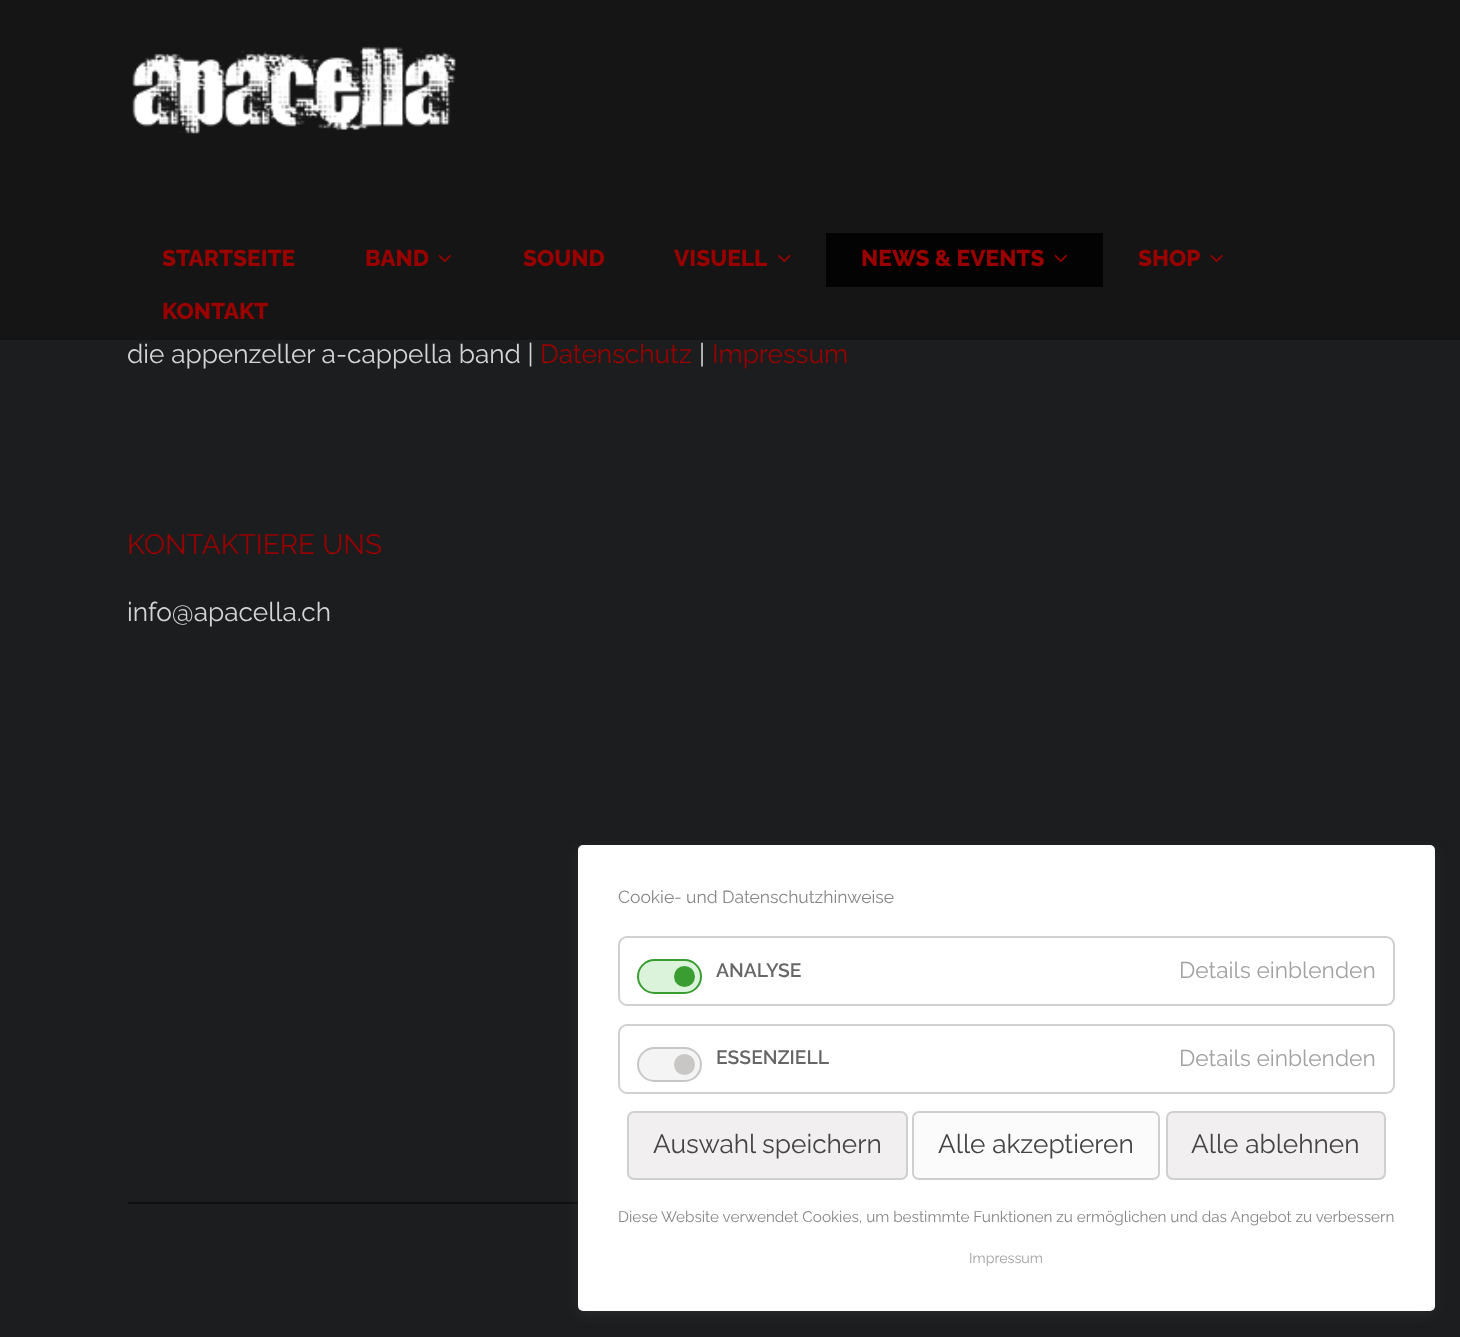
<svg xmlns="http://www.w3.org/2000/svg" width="1460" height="1337">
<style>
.a{font:800 22.75px Raleway;fill:#900}
.b{font:26.25px Raleway;fill:#d4d4d4}
.c{font:26.25px Raleway;fill:#900}
.d{font:28px Raleway;fill:#900}
.e{font:17.5px Raleway;fill:#868686}
.f{font:600 19.25px Raleway;fill:#666}
.g{font:22.75px Raleway;fill:#a2a2a2}
.h{font:26.25px Raleway;fill:#444}
.i{font:15.3px Raleway;fill:#868686}
.j{font:14.25px Raleway;fill:#a2a2a2}
</style>
<rect width="100%" height="100%" fill="#1c1d1f"/>
<path fill="#151515" d="M0 0h1460v340H0z"/>
<image href="1.png" x="132" y="46" width="324" height="88"/>
<image href="2.png" x="438" y="254" width="14" height="9"/>
<image href="3.png" x="778" y="254" width="13" height="9"/>
<path fill="#030303" d="M826 233h277v54H826z"/>
<image href="4.png" x="1054" y="254" width="14" height="9"/>
<image href="5.png" x="1210" y="254" width="13" height="9"/>
<path fill="#101011" d="M128 1202h450v2H128z"/>
<rect fill="#63636333" filter="blur(7px)" x="578" y="849" width="857" height="465" rx="5"/>
<rect fill="#fff" x="578" y="845" width="857" height="466" rx="5"/>
<rect fill="none" stroke="#d0d0d0" stroke-width="2" x="619" y="937" width="775" height="68" rx="8"/>
<rect fill="#dcf3db" stroke="#399d32" stroke-width="2" x="638" y="960" width="63" height="33" rx="16.5"/>
<circle fill="#399d32" cx="684.5" cy="976.5" r="10.5"/>
<rect fill="none" stroke="#d0d0d0" stroke-width="2" x="619" y="1025" width="775" height="68" rx="8"/>
<rect fill="#f4f4f4" stroke="#c8c7c5" stroke-width="2" x="638" y="1048" width="63" height="33" rx="16.5"/>
<circle fill="#c8c7c5" cx="684.5" cy="1064.5" r="10.5"/>
<rect fill="#f1efef" stroke="#cfcfcf" stroke-width="2" x="628" y="1112" width="279" height="67" rx="6"/>
<rect fill="#fbfbfb" stroke="#cfcfcf" stroke-width="2" x="913" y="1112" width="246" height="67" rx="6"/>
<rect fill="#f1efef" stroke="#cfcfcf" stroke-width="2" x="1167" y="1112" width="218" height="67" rx="6"/>
<text class="a" x="162" y="266">STARTSEITE</text>
<text class="a" x="365" y="266">BAND</text>
<text class="a" x="523" y="266">SOUND</text>
<text class="a" x="674" y="266">VISUELL</text>
<text class="a" x="861" y="266">NEWS &amp; EVENTS</text>
<text class="a" x="1138" y="266">SHOP</text>
<text class="a" x="162" y="319">KONTAKT</text>
<text class="b" x="127" y="363">die appenzeller a-cappella band |</text>
<text class="c" x="540" y="363">Datenschutz</text>
<text class="b" x="699" y="363">|</text>
<text class="c" x="712" y="363">Impressum</text>
<text class="d" x="127" y="554">KONTAKTIERE UNS</text>
<text class="b" x="127" y="621">info@apacella.ch</text>
<text class="e" x="618" y="903">Cookie- und Datenschutzhinweise</text>
<text class="f" x="716" y="977">ANALYSE</text>
<text class="g" x="1179" y="978">Details einblenden</text>
<text class="f" x="716" y="1064">ESSENZIELL</text>
<text class="g" x="1179" y="1066">Details einblenden</text>
<text class="h" x="653" y="1153">Auswahl speichern</text>
<text class="h" x="938" y="1153">Alle akzeptieren</text>
<text class="h" x="1191" y="1153">Alle ablehnen</text>
<text class="i" x="618" y="1222">Diese Website verwendet Cookies, um bestimmte Funktionen zu ermöglichen und das Angebot zu verbessern</text>
<text class="j" x="969" y="1263">Impressum</text>
</svg>
